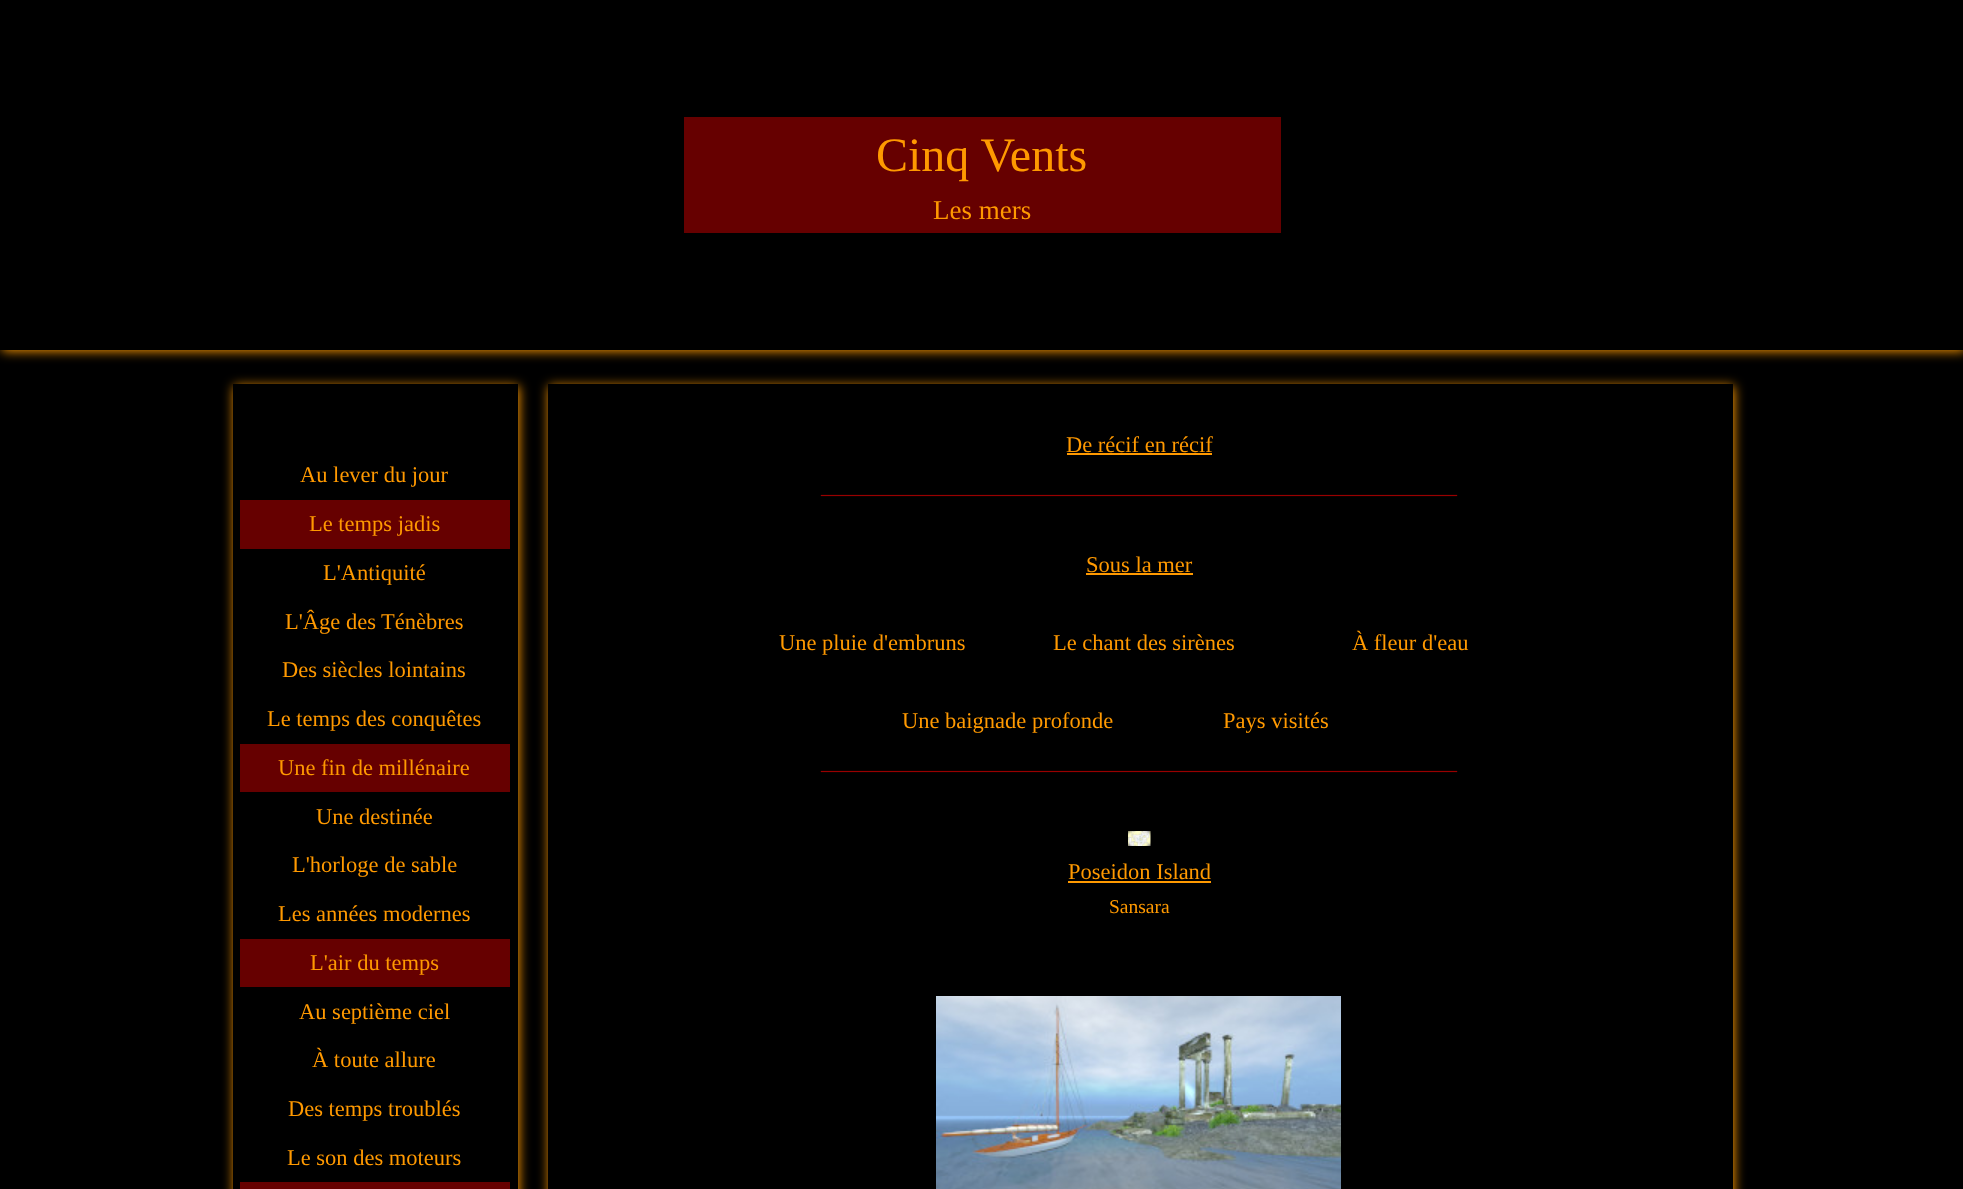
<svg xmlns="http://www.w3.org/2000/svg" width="1963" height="1189">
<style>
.a{font:48px Liberation Serif;fill:#f90}
.b{font:27px Liberation Serif;fill:#f90}
.c{font:22.5px Liberation Serif;fill:#f90}
.d{font:24px Liberation Serif;fill:#900}
.e{font:19.5px Liberation Serif;fill:#f90}
</style>
<rect width="100%" height="100%" fill="#000"/>
<path fill="#f90" filter="blur(6px)" d="M2 2h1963v349H2z"/>
<path fill="#000" d="M0 0h1963v350H0z"/>
<path fill="#600" d="M684 117h597v116H684z"/>
<path fill="#f90" filter="blur(6px)" d="M234 386h285v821H234z"/>
<path fill="#000" d="M233 384h285v805H233z"/>
<path fill="#600" d="M240 500h270v49H240z"/>
<path fill="#600" d="M240 744h270v48H240z"/>
<path fill="#600" d="M240 939h270v48H240z"/>
<path fill="#600" d="M240 1182h270v7H240z"/>
<path fill="#f90" filter="blur(6px)" d="M549 386h1185v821H549z"/>
<path fill="#000" d="M548 384h1185v805H548z"/>
<path fill="#f90" d="M1067 453h145v2H1067z"/>
<path fill="#f90" d="M1086 573h107v2H1086z"/>
<image href="1.png" x="1128" y="831" width="23" height="15"/>
<path fill="#f90" d="M1068 881h143v2H1068z"/>
<image href="2.png" x="936" y="996" width="405" height="193"/>
<text class="a" x="876" y="171">Cinq Vents</text>
<text class="b" x="933" y="219">Les mers</text>
<text class="c" x="300" y="482">Au lever du jour</text>
<text class="c" x="309" y="531">Le temps jadis</text>
<text class="c" x="323" y="580">L'Antiquité</text>
<text class="c" x="285" y="629">L'Âge des Ténèbres</text>
<text class="c" x="282" y="677">Des siècles lointains</text>
<text class="c" x="267" y="726">Le temps des conquêtes</text>
<text class="c" x="278" y="775">Une fin de millénaire</text>
<text class="c" x="316" y="824">Une destinée</text>
<text class="c" x="292" y="872">L'horloge de sable</text>
<text class="c" x="278" y="921">Les années modernes</text>
<text class="c" x="310" y="970">L'air du temps</text>
<text class="c" x="299" y="1019">Au septième ciel</text>
<text class="c" x="312" y="1067">À toute allure</text>
<text class="c" x="288" y="1116">Des temps troublés</text>
<text class="c" x="287" y="1165">Le son des moteurs</text>
<text class="c" x="1066" y="452">De récif en récif</text>
<text class="d" x="821" y="493">_____________________________________________________</text>
<text class="c" x="1086" y="572">Sous la mer</text>
<text class="c" x="779" y="650">Une pluie d'embruns</text>
<text class="c" x="1053" y="650">Le chant des sirènes</text>
<text class="c" x="1352" y="650">À fleur d'eau</text>
<text class="c" x="902" y="728">Une baignade profonde</text>
<text class="c" x="1223" y="728">Pays visités</text>
<text class="d" x="821" y="769">_____________________________________________________</text>
<text class="c" x="1068" y="879">Poseidon Island</text>
<text class="e" x="1109" y="913">Sansara</text>
</svg>
